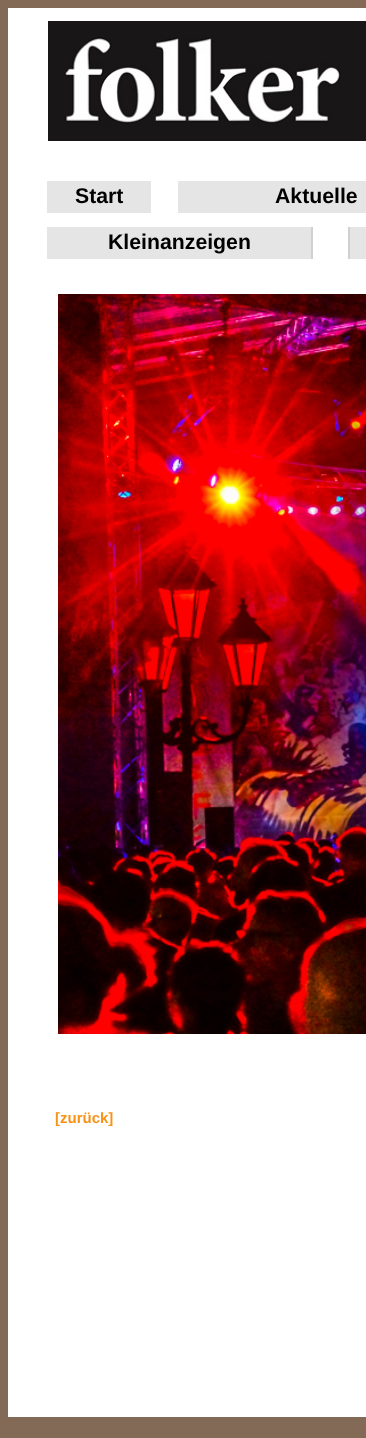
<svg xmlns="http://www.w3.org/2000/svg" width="366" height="1438">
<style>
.a{font:bold 21.25px Liberation Sans;fill:#000}
.b{font:bold 15px Liberation Sans;fill:#f79317}
</style>
<rect width="100%" height="100%" fill="#836a56"/>
<path fill="#fff" d="M8 8h358v1409H8z"/>
<image href="1.png" x="48" y="21" width="318" height="120"/>
<path fill="#e5e5e5" d="M47 181h104v32H47z"/>
<path fill="#e5e5e5" d="M178 181h188v32H178z"/>
<path fill="#d0d0d0" d="M311 227h39v32H311z"/>
<path fill="#e5e5e5" d="M47 227h264v32H47z"/>
<path fill="#fff" d="M313 227h35v32H313z"/>
<path fill="#e5e5e5" d="M350 227h16v32H350z"/>
<image href="2.png" x="58" y="294" width="308" height="740"/>
<text class="a" x="75" y="203">Start</text>
<text class="a" x="275" y="203">Aktuelle</text>
<text class="a" x="108" y="249">Kleinanzeigen</text>
<text class="b" x="55" y="1123">[zurück]</text>
</svg>
